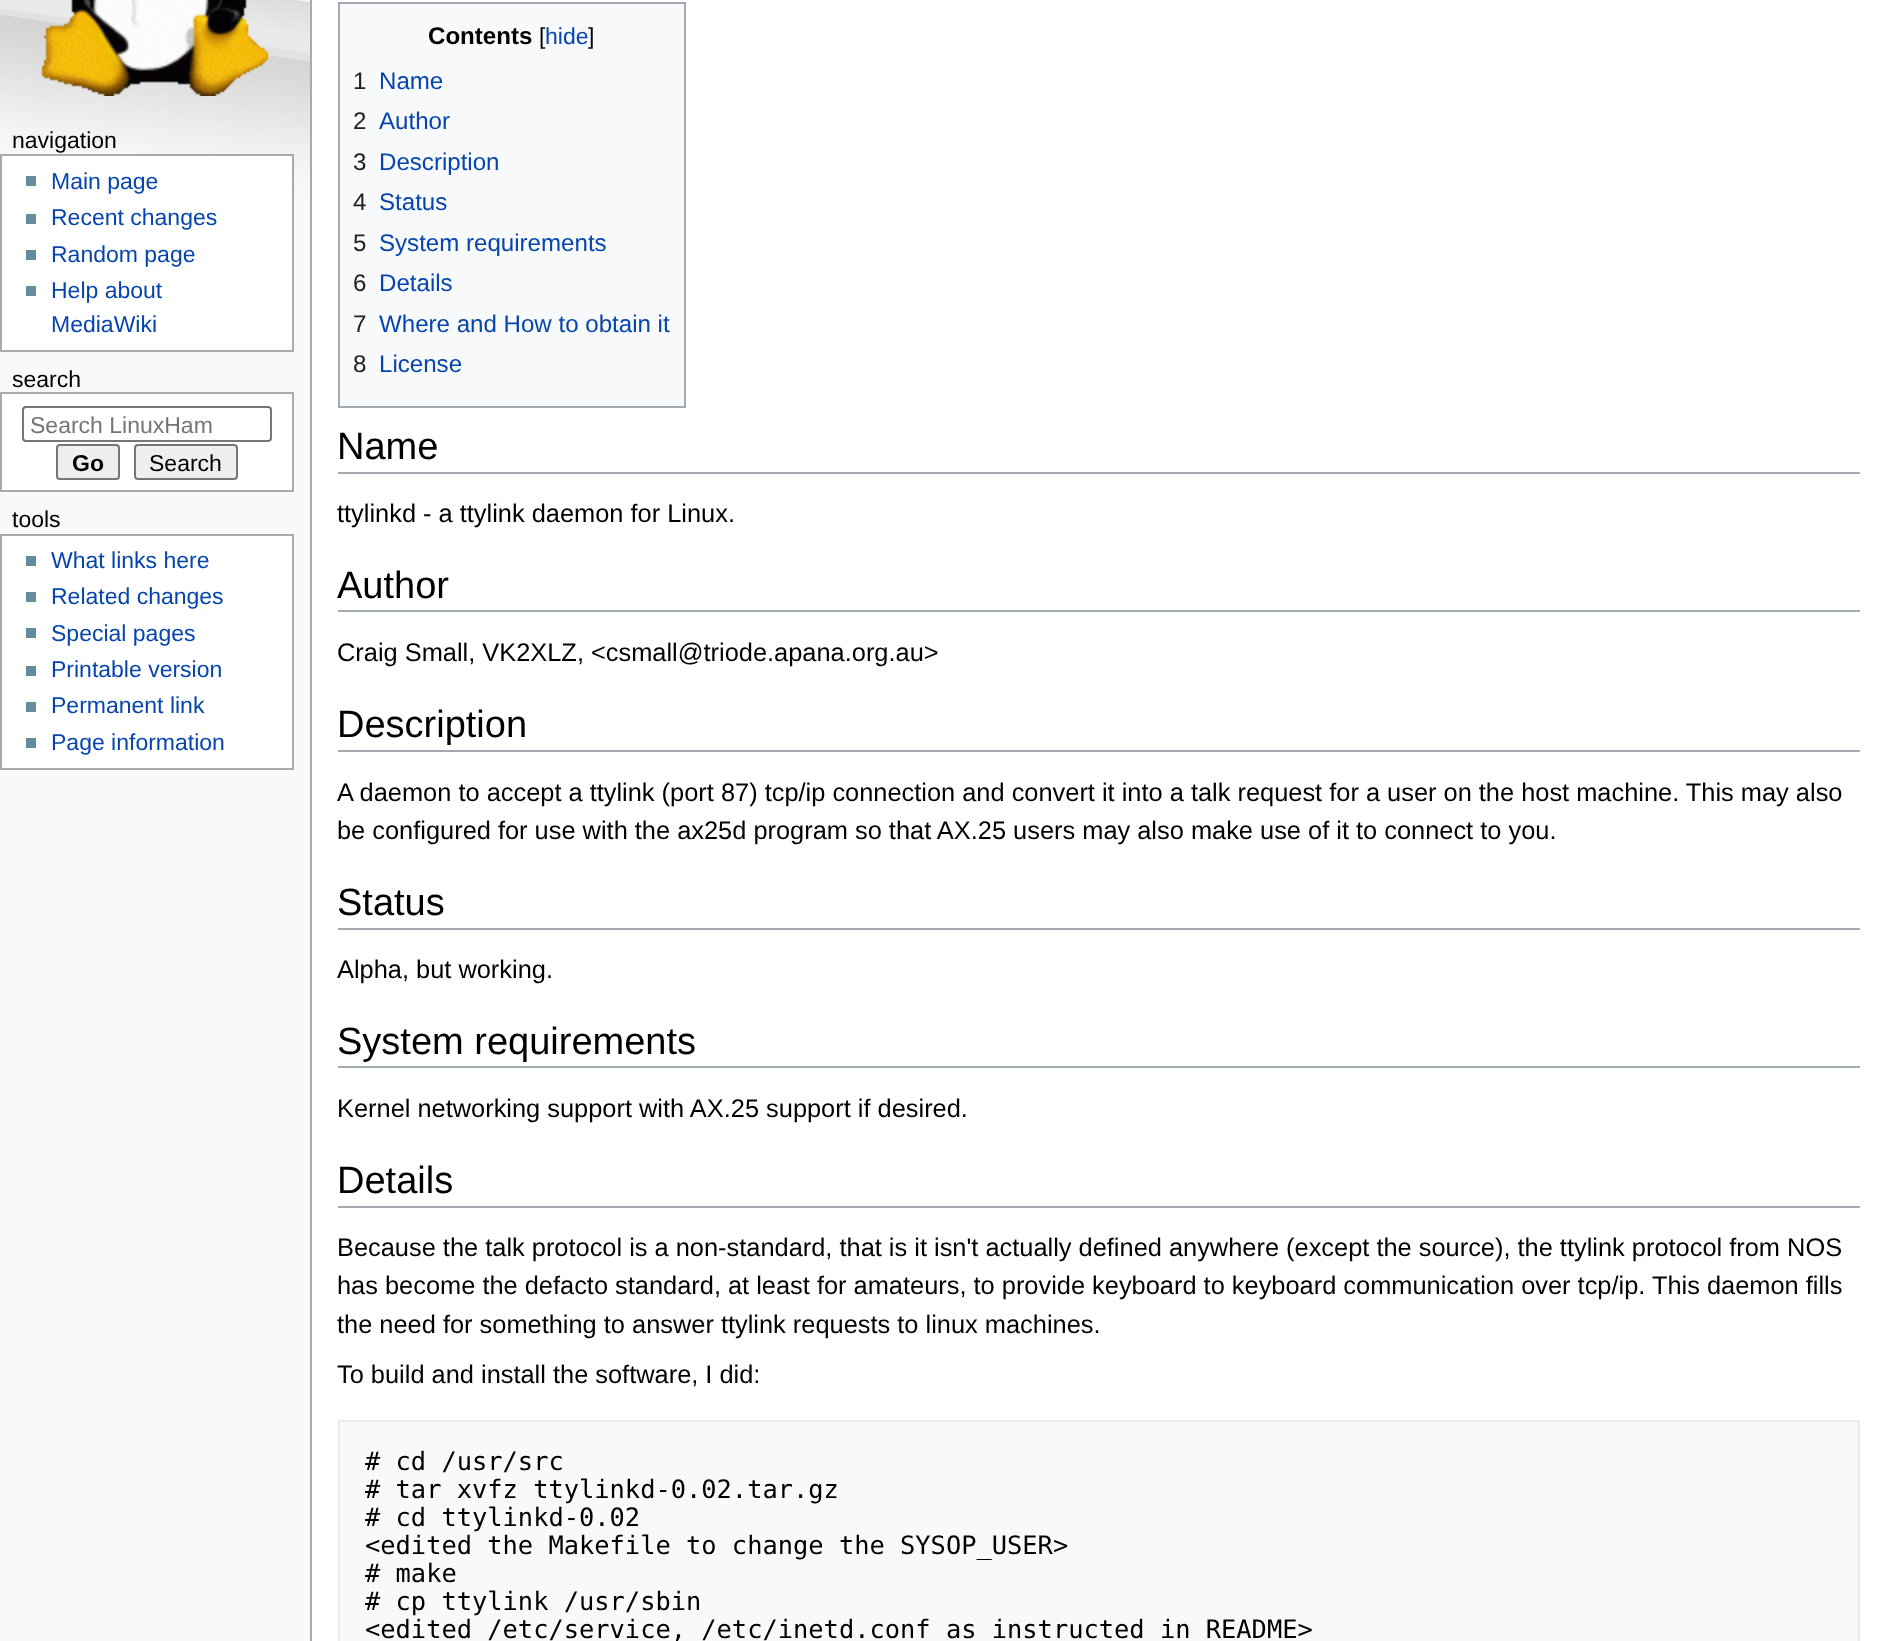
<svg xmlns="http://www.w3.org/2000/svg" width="1885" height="1641">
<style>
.a{font:23px Liberation Sans;fill:#000}
.b{font:23px Liberation Sans;fill:#0645ad}
.c{font:23px Liberation Sans;fill:#757575}
.d{font:bold 23px Liberation Sans;fill:#000}
.e{font:bold 24.1px Liberation Sans;fill:#000}
.f{font:24.1px Liberation Sans;fill:#202122}
.g{font:24.1px Liberation Sans;fill:#0645ad}
.h{font:38px Liberation Sans;fill:#000}
.i{font:25.4px Liberation Sans;fill:#000}
.j{font:25.4px DejaVu Sans Mono;fill:#000}
</style>
<rect width="100%" height="100%" fill="#f9f9f9"/>
<image href="1.png" x="0" y="0" width="310" height="225"/>
<image href="2.png" x="41" y="0" width="228" height="96"/>
<path fill="#fff" stroke="#aaa" stroke-width="2" d="M1 155h292v196H1z"/>
<path fill="#638c9c" d="M26 176h10v10H26z"/>
<path fill="#638c9c" d="M26 214h10v10H26z"/>
<path fill="#638c9c" d="M26 250h10v10H26z"/>
<path fill="#638c9c" d="M26 286h10v10H26z"/>
<path fill="#fff" stroke="#aaa" stroke-width="2" d="M1 393h292v98H1z"/>
<rect fill="none" stroke="#767676" stroke-width="2" x="23" y="407" width="248" height="34" rx="3"/>
<rect fill="#efefef" stroke="#767676" stroke-width="2" x="57" y="445" width="62" height="34" rx="3"/>
<rect fill="#efefef" stroke="#767676" stroke-width="2" x="135" y="445" width="102" height="34" rx="3"/>
<path fill="#fff" stroke="#aaa" stroke-width="2" d="M1 535h292v234H1z"/>
<path fill="#638c9c" d="M26 556h10v10H26z"/>
<path fill="#638c9c" d="M26 592h10v10H26z"/>
<path fill="#638c9c" d="M26 628h10v10H26z"/>
<path fill="#638c9c" d="M26 666h10v10H26z"/>
<path fill="#638c9c" d="M26 702h10v10H26z"/>
<path fill="#638c9c" d="M26 738h10v10H26z"/>
<path fill="#fff" d="M312 0h1573v1641H312z"/>
<path fill="#aaa" d="M310 0h2v1641H310z"/>
<path fill="#f8f9fa" stroke="#a2a9b1" stroke-width="2" d="M339 3h346v404H339z"/>
<path fill="#a2a9b1" d="M338 472h1522v2H338z"/>
<path fill="#a2a9b1" d="M338 610h1522v2H338z"/>
<path fill="#a2a9b1" d="M338 750h1522v2H338z"/>
<path fill="#a2a9b1" d="M338 928h1522v2H338z"/>
<path fill="#a2a9b1" d="M338 1066h1522v2H338z"/>
<path fill="#a2a9b1" d="M338 1206h1522v2H338z"/>
<path fill="#f8f9fa" stroke="#eaecf0" stroke-width="2" d="M339 1421h1520v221H339z"/>
<text class="a" x="12" y="148">navigation</text>
<text class="b" x="51" y="189">Main page</text>
<text class="b" x="51" y="225">Recent changes</text>
<text class="b" x="51" y="262">Random page</text>
<text class="b" x="51" y="298">Help about</text>
<text class="b" x="51" y="332">MediaWiki</text>
<text class="a" x="12" y="387">search</text>
<text class="c" x="30" y="433">Search LinuxHam</text>
<text class="d" x="72" y="471">Go</text>
<text class="a" x="149" y="471">Search</text>
<text class="a" x="12" y="527">tools</text>
<text class="b" x="51" y="568">What links here</text>
<text class="b" x="51" y="604">Related changes</text>
<text class="b" x="51" y="641">Special pages</text>
<text class="b" x="51" y="677">Printable version</text>
<text class="b" x="51" y="713">Permanent link</text>
<text class="b" x="51" y="750">Page information</text>
<text class="e" x="428" y="44">Contents</text>
<text class="a" x="539" y="44">[</text>
<text class="b" x="545" y="44">hide</text>
<text class="a" x="588" y="44">]</text>
<text class="f" x="353" y="89">1</text>
<text class="g" x="379" y="89">Name</text>
<text class="f" x="353" y="129">2</text>
<text class="g" x="379" y="129">Author</text>
<text class="f" x="353" y="170">3</text>
<text class="g" x="379" y="170">Description</text>
<text class="f" x="353" y="210">4</text>
<text class="g" x="379" y="210">Status</text>
<text class="f" x="353" y="251">5</text>
<text class="g" x="379" y="251">System requirements</text>
<text class="f" x="353" y="291">6</text>
<text class="g" x="379" y="291">Details</text>
<text class="f" x="353" y="332">7</text>
<text class="g" x="379" y="332">Where and How to obtain it</text>
<text class="f" x="353" y="372">8</text>
<text class="g" x="379" y="372">License</text>
<text class="h" x="337" y="459">Name</text>
<text class="i" x="337" y="522">ttylinkd - a ttylink daemon for Linux.</text>
<text class="h" x="337" y="598">Author</text>
<text class="i" x="337" y="661">Craig Small, VK2XLZ, &lt;csmall@triode.apana.org.au&gt;</text>
<text class="h" x="337" y="737">Description</text>
<text class="i" x="337" y="801">A daemon to accept a ttylink (port 87) tcp/ip connection and convert it into a talk request for a user on the host machine. This may also</text>
<text class="i" x="337" y="839">be configured for use with the ax25d program so that AX.25 users may also make use of it to connect to you.</text>
<text class="h" x="337" y="915">Status</text>
<text class="i" x="337" y="978">Alpha, but working.</text>
<text class="h" x="337" y="1054">System requirements</text>
<text class="i" x="337" y="1117">Kernel networking support with AX.25 support if desired.</text>
<text class="h" x="337" y="1193">Details</text>
<text class="i" x="337" y="1256">Because the talk protocol is a non-standard, that is it isn't actually defined anywhere (except the source), the ttylink protocol from NOS</text>
<text class="i" x="337" y="1294">has become the defacto standard, at least for amateurs, to provide keyboard to keyboard communication over tcp/ip. This daemon fills</text>
<text class="i" x="337" y="1333">the need for something to answer ttylink requests to linux machines.</text>
<text class="i" x="337" y="1383">To build and install the software, I did:</text>
<text class="j" x="365" y="1470"># cd /usr/src</text>
<text class="j" x="365" y="1498"># tar xvfz ttylinkd-0.02.tar.gz</text>
<text class="j" x="365" y="1526"># cd ttylinkd-0.02</text>
<text class="j" x="365" y="1554">&lt;edited the Makefile to change the SYSOP_USER&gt;</text>
<text class="j" x="365" y="1582"># make</text>
<text class="j" x="365" y="1610"># cp ttylink /usr/sbin</text>
<text class="j" x="365" y="1638">&lt;edited /etc/service, /etc/inetd.conf as instructed in README&gt;</text>
</svg>
